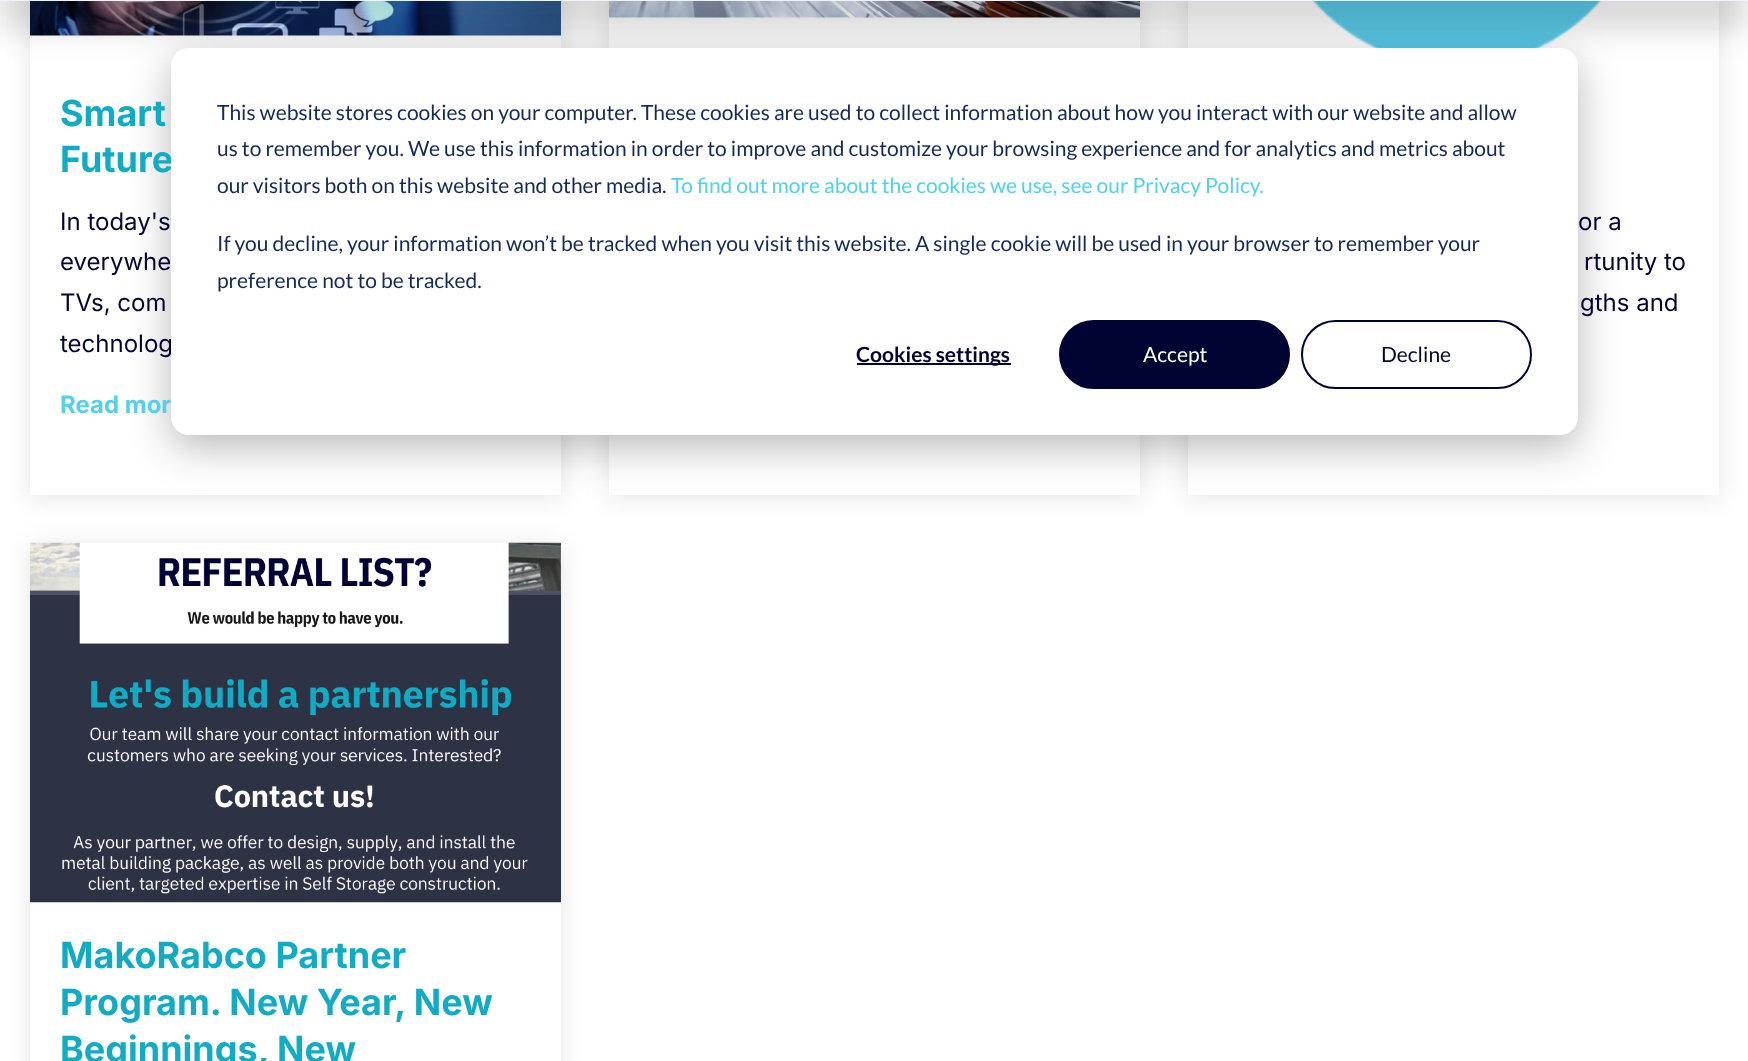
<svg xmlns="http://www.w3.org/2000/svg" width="1748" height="1061">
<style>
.a{font:bold 36px Inter;fill:#10acc6}
.b{font:24px Inter;fill:#000433}
.c{font:bold 24px Inter;fill:#50d1ef}
.d{font:21px Lato;fill:#15295a}
.e{font:21px Lato;fill:#50d1ef}
.f{font:bold 21px Lato;fill:#000433}
.g{font:21px Lato;fill:#fff}
.h{font:21px Lato;fill:#000433}
</style>
<defs>
<clipPath id="clip1"><path d="M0 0h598v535h-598zm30-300h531v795h-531z" clip-rule="evenodd"/></clipPath>
<clipPath id="clip2"><path d="M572 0h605v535h-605zm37-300h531v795h-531z" clip-rule="evenodd"/></clipPath>
<clipPath id="clip3"><path d="M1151 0h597v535h-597zm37-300h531v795h-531z" clip-rule="evenodd"/></clipPath>
<clipPath id="clip4"><path d="M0 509h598v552h-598zm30 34h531v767h-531z" clip-rule="evenodd"/></clipPath>
</defs>
<rect width="100%" height="100%" fill="#fff"/>
<g clip-path="url(#clip1)">
<path fill="#0000001a" filter="blur(12px)" d="M30 -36h531v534H30z"/>
</g>
<image href="1.png" x="30" y="1" width="531" height="35"/>
<g clip-path="url(#clip2)">
<path fill="#0000001a" filter="blur(12px)" d="M609 -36h531v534H609z"/>
</g>
<image href="2.png" x="609" y="1" width="531" height="17"/>
<g clip-path="url(#clip3)">
<path fill="#0000001a" filter="blur(12px)" d="M1188 -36h531v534H1188z"/>
</g>
<image href="3.png" x="1312" y="1" width="290" height="47"/>
<path fill="#00000026" filter="blur(15px)" d="M0 -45h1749v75H0z"/>
<path fill="#f0f4ff" d="M0 0h1748v1H0z"/>
<g clip-path="url(#clip4)">
<path fill="#0000001a" filter="blur(12px)" d="M30 546h531v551H30z"/>
</g>
<image href="4.png" x="30" y="542" width="531" height="361"/>
<rect fill="#00000047" filter="blur(21px)" x="171" y="60" width="1407" height="387" rx="18"/>
<text class="a" x="60" y="126">Smart</text>
<text class="a" x="60" y="172">Future</text>
<text class="b" x="60" y="230">In today's</text>
<text class="b" x="60" y="270">everywhe</text>
<text class="b" x="60" y="311">TVs, com</text>
<text class="b" x="60" y="352">technolog</text>
<text class="c" x="60" y="413">Read mor</text>
<text class="b" x="1578" y="230">or a</text>
<text class="b" x="1584" y="270">rtunity to</text>
<text class="b" x="1580" y="311">gths and</text>
<text class="a" x="60" y="968">MakoRabco Partner</text>
<text class="a" x="60" y="1015">Program. New Year, New</text>
<text class="a" x="60" y="1062">Beginnings, New</text>
<rect fill="#fff" x="171" y="48" width="1407" height="387" rx="18"/>
<text class="d" x="217" y="120">This website stores cookies on your computer. These cookies are used to collect information about how you interact with our website and allow</text>
<text class="d" x="217" y="156">us to remember you. We use this information in order to improve and customize your browsing experience and for analytics and metrics about</text>
<text class="d" x="217" y="193">our visitors both on this website and other media.</text>
<text class="e" x="671" y="193">To find out more about the cookies we use, see our Privacy Policy.</text>
<text class="d" x="217" y="251">If you decline, your information won’t be tracked when you visit this website. A single cookie will be used in your browser to remember your</text>
<text class="d" x="217" y="288">preference not to be tracked.</text>
<path fill="#000433" d="M857 363h154v2H857z"/>
<text class="f" x="856" y="362">Cookies settings</text>
<rect fill="#000433" stroke="#000433" stroke-width="2" x="1060" y="321" width="229" height="67" rx="33.5"/>
<text class="g" x="1143" y="362">Accept</text>
<rect fill="none" stroke="#000433" stroke-width="2" x="1302" y="321" width="229" height="67" rx="33.5"/>
<text class="h" x="1381" y="362">Decline</text>
</svg>
